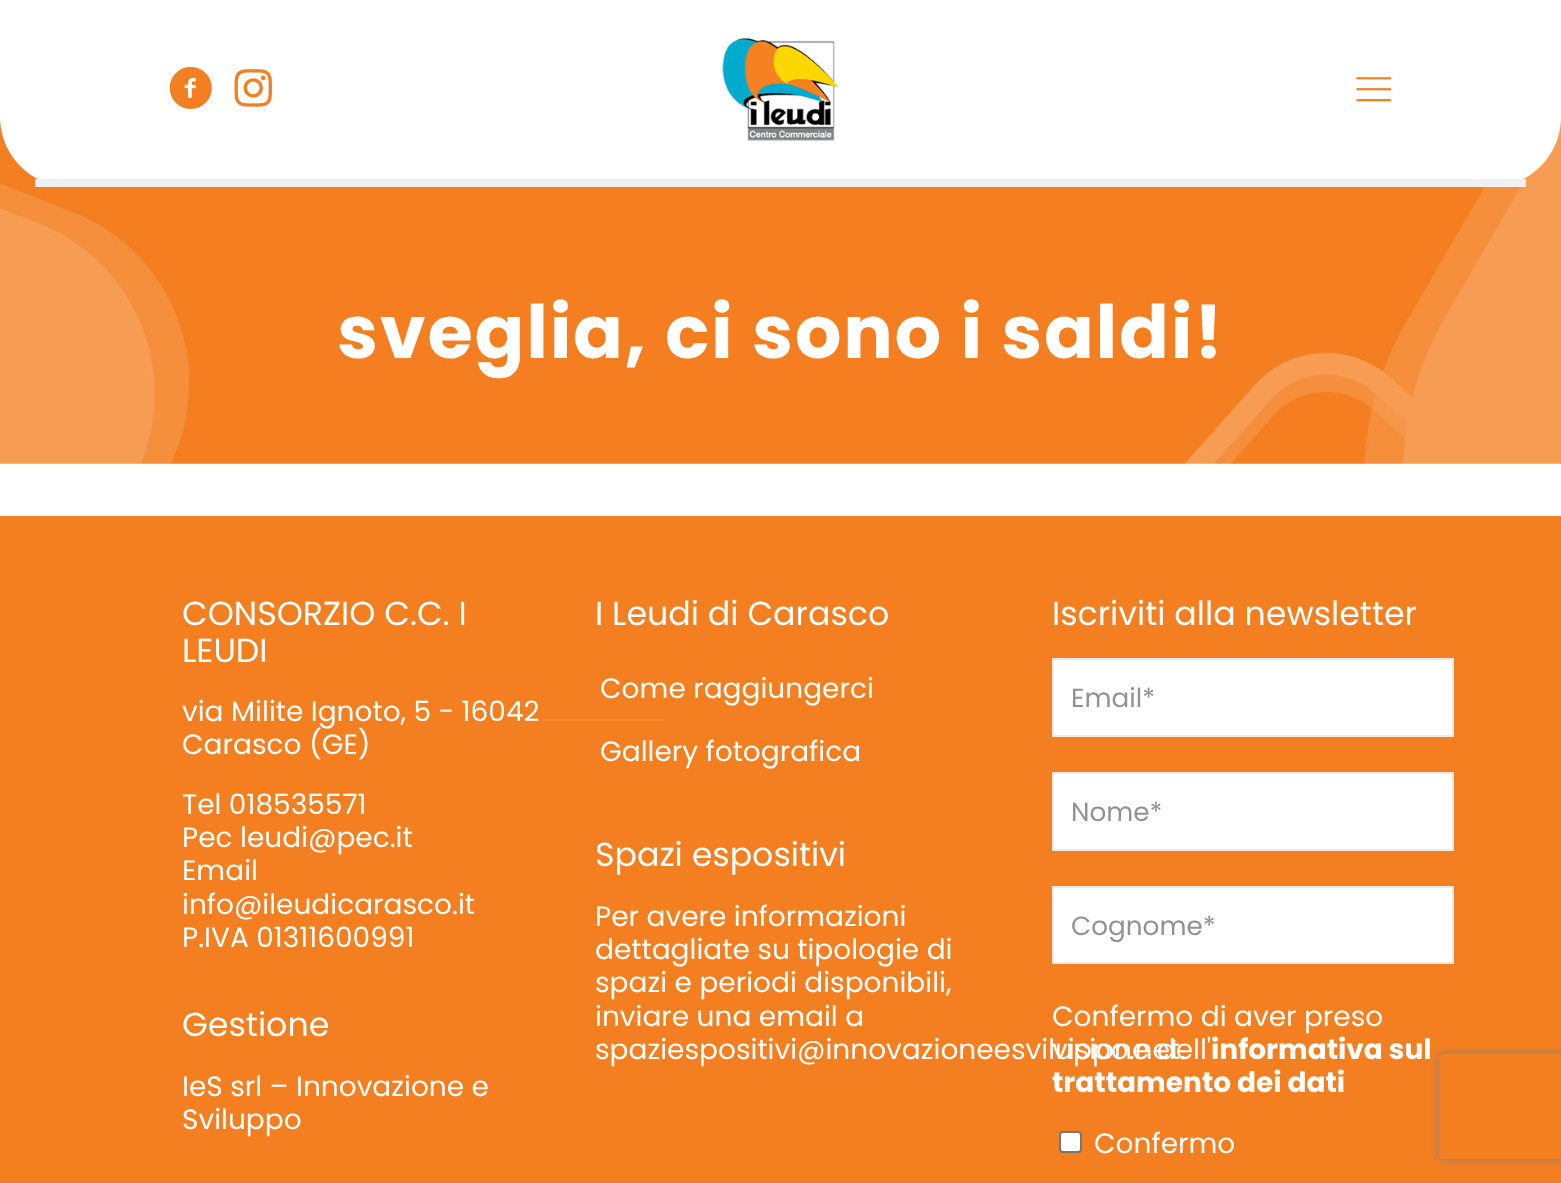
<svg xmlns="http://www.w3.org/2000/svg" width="1561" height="1183">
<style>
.a{font:bold 73.5px Poppins;letter-spacing:1.75px;fill:#fff}
.b{font:33.25px Poppins;fill:#fff}
.c{font:28px Poppins;fill:#fff}
.d{font:26.25px Poppins;fill:#929292}
.e{font:bold 28px Poppins;fill:#fff}
</style>
<defs>
<clipPath id="clip1"><path d="M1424 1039h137v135h-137zm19 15h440c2 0 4 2 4 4v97c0 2-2 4-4 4h-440c-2 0-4-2-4-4v-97c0-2 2-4 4-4z" clip-rule="evenodd"/></clipPath>
</defs>
<rect width="100%" height="100%" fill="#fff"/>
<image href="5.png" x="0" y="117" width="1561" height="347"/>
<path fill="#fff" d="M0 0h1561v117c0 38.5-31.5 70-70 70h-1421c-38.5 0-70-31.5-70-70z"/>
<path fill="#f0f0f0" d="M35 179h1491v8H35z"/>
<image href="1.png" x="169" y="66" width="43" height="43"/>
<image href="2.png" x="234" y="69" width="38" height="38"/>
<image href="3.png" x="722" y="37" width="117" height="104"/>
<image href="4.png" x="1356" y="77" width="35" height="25"/>
<path fill="#f47f20" d="M0 516h1561v667H0z"/>
<path fill="#f58932" d="M543 719h122v2H543z"/>
<path fill="#fff" stroke="#ebebeb" stroke-width="2" d="M1053 659h400v77H1053z"/>
<path fill="#fff" stroke="#ebebeb" stroke-width="2" d="M1053 773h400v77H1053z"/>
<path fill="#fff" stroke="#ebebeb" stroke-width="2" d="M1053 887h400v76H1053z"/>
<rect fill="#fff" stroke="#767676" stroke-width="2" x="1060" y="1132" width="21" height="20" rx="3"/>
<g clip-path="url(#clip1)">
<rect fill="#808080" filter="blur(4.5px)" x="1439" y="1054" width="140" height="105" rx="4"/>
</g>
<text class="a" x="337" y="358">sveglia, ci sono i saldi!</text>
<text class="b" x="182" y="625">CONSORZIO C.C. I</text>
<text class="b" x="182" y="662">LEUDI</text>
<text class="c" x="182" y="721">via Milite Ignoto, 5 - 16042</text>
<text class="c" x="182" y="754">Carasco (GE)</text>
<text class="c" x="182" y="814">Tel 018535571</text>
<text class="c" x="182" y="847">Pec leudi@pec.it</text>
<text class="c" x="182" y="880">Email</text>
<text class="c" x="182" y="914">info@ileudicarasco.it</text>
<text class="c" x="182" y="947">P.IVA 01311600991</text>
<text class="b" x="182" y="1036">Gestione</text>
<text class="c" x="182" y="1096">IeS srl – Innovazione e</text>
<text class="c" x="182" y="1129">Sviluppo</text>
<text class="b" x="595" y="625">I Leudi di Carasco</text>
<text class="c" x="600" y="698">Come raggiungerci</text>
<text class="c" x="600" y="761">Gallery fotografica</text>
<text class="b" x="595" y="866">Spazi espositivi</text>
<text class="c" x="595" y="926">Per avere informazioni</text>
<text class="c" x="595" y="959">dettagliate su tipologie di</text>
<text class="c" x="595" y="992">spazi e periodi disponibili,</text>
<text class="c" x="595" y="1026">inviare una email a</text>
<text class="c" x="595" y="1059">spaziespositivi@innovazioneesviluppo.net.</text>
<text class="b" x="1052" y="625">Iscriviti alla newsletter</text>
<text class="d" x="1071" y="707">Email*</text>
<text class="d" x="1071" y="821">Nome*</text>
<text class="d" x="1071" y="935">Cognome*</text>
<text class="c" x="1052" y="1026">Confermo di aver preso</text>
<text class="c" x="1052" y="1059">visione dell'</text>
<text class="e" x="1211" y="1059">informativa sul</text>
<text class="e" x="1052" y="1092">trattamento dei dati</text>
<text class="c" x="1094" y="1153">Confermo</text>
</svg>
